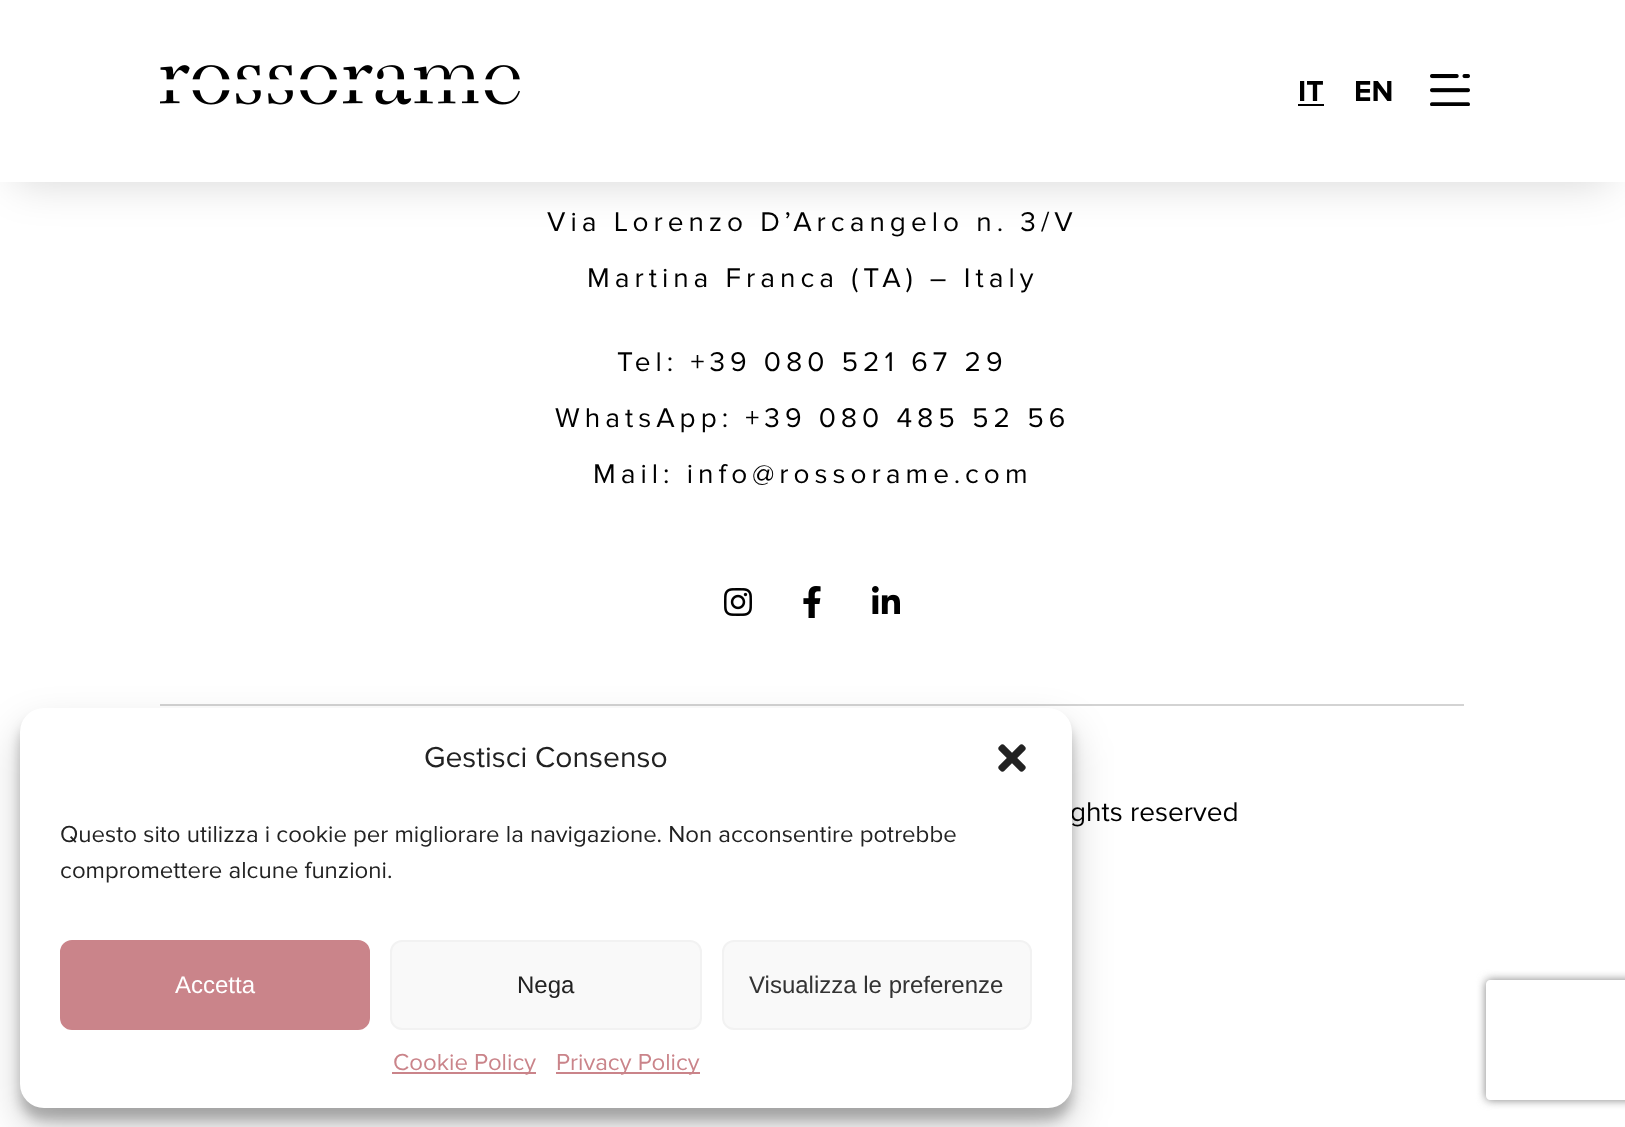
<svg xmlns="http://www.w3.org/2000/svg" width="1625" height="1127">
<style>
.a{font:bold 30px Proxima Nova;fill:#000}
.b{font:28px Proxima Nova;letter-spacing:5px;fill:#000}
.c{font:28px Proxima Nova;fill:#000}
.d{font:30px Proxima Nova;fill:#222}
.e{font:24px Proxima Nova;fill:#222}
.f{font:24px Liberation Sans;fill:#fff}
.g{font:24px Liberation Sans;fill:#222}
.h{font:24px Liberation Sans;fill:#333}
.i{font:24px Proxima Nova;fill:#ca848a}
</style>
<defs>
<clipPath id="clip1"><path d="M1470 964h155v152h-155zm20 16h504c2 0 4 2 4 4v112c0 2-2 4-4 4h-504c-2 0-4-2-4-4v-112c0-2 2-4 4-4z" clip-rule="evenodd"/></clipPath>
</defs>
<rect width="100%" height="100%" fill="#fff"/>
<path fill="#0000002b" filter="blur(22px)" d="M16 32h1594v150H16z"/>
<path fill="#fff" d="M0 0h1625v182H0z"/>
<image href="1.png" x="160" y="65" width="360" height="40"/>
<path fill="#000" d="M1298 104h26v2H1298z"/>
<image href="2.png" x="1430" y="74" width="40" height="32"/>
<image href="3.png" x="724" y="588" width="28" height="28"/>
<image href="4.png" x="803" y="586" width="18" height="32"/>
<image href="5.png" x="872" y="586" width="28" height="28"/>
<path fill="#d3d3d3" d="M160 704h1304v2H160z"/>
<rect fill="#0000003b" filter="blur(6px)" x="20" y="720" width="1052" height="400" rx="24"/>
<rect fill="#00000030" filter="blur(20px)" x="20" y="728" width="1052" height="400" rx="24"/>
<g clip-path="url(#clip1)">
<rect fill="#808080" filter="blur(5px)" x="1486" y="980" width="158" height="120" rx="4"/>
</g>
<text class="a" x="1298" y="101">IT</text>
<text class="a" x="1354" y="101">EN</text>
<text class="b" x="547" y="231">Via Lorenzo D’Arcangelo n. 3/V</text>
<text class="b" x="587" y="287">Martina Franca (TA) – Italy</text>
<text class="b" x="617" y="371">Tel: +39 080 521 67 29</text>
<text class="b" x="555" y="427">WhatsApp: +39 080 485 52 56</text>
<text class="b" x="593" y="483">Mail: info@rossorame.com</text>
<text class="c" x="1070" y="821">ghts reserved</text>
<rect fill="#fff" x="20" y="708" width="1052" height="400" rx="24"/>
<text class="d" x="424" y="767">Gestisci Consenso</text>
<image href="6.png" x="998" y="744" width="28" height="28"/>
<text class="e" x="60" y="842">Questo sito utilizza i cookie per migliorare la navigazione. Non acconsentire potrebbe</text>
<text class="e" x="60" y="878">compromettere alcune funzioni.</text>
<rect fill="#ca848a" stroke="#ca848a" stroke-width="2" x="61" y="941" width="308" height="88" rx="11"/>
<text class="f" x="175" y="993">Accetta</text>
<rect fill="#f9f9f9" stroke="#f2f2f2" stroke-width="2" x="391" y="941" width="310" height="88" rx="11"/>
<text class="g" x="517" y="993">Nega</text>
<rect fill="#f9f9f9" stroke="#f2f2f2" stroke-width="2" x="723" y="941" width="308" height="88" rx="11"/>
<text class="h" x="749" y="993">Visualizza le preferenze</text>
<path fill="#ca848a" d="M392 1072h144v2H392z"/>
<text class="i" x="393" y="1070">Cookie Policy</text>
<path fill="#ca848a" d="M556 1072h144v2H556z"/>
<text class="i" x="556" y="1070">Privacy Policy</text>
</svg>
